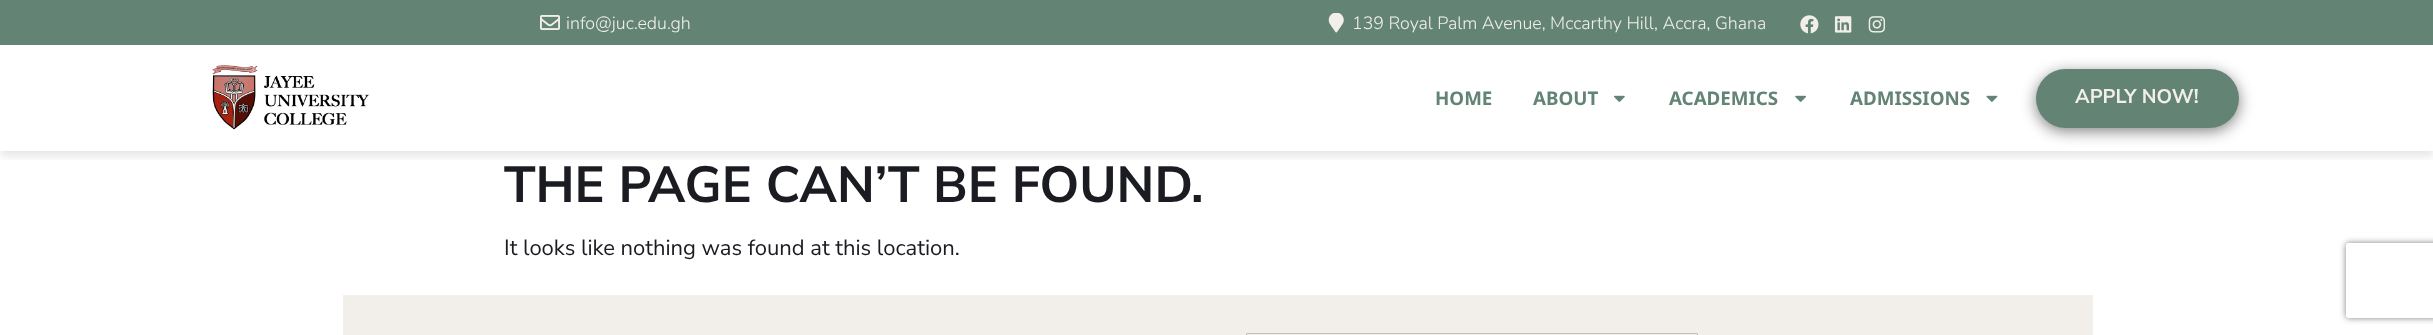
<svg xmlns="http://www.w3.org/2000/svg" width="2433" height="335">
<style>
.a{font:300 17.8px Nunito Sans;fill:#f2efea}
.b{font:bold 18.75px Noto Sans;fill:#638475}
.c{font:bold 19.75px Nunito Sans;fill:#f2efea}
.d{font:bold 50.6px Nunito Sans;fill:#1b1c22}
.e{font:22px Nunito Sans;fill:#1b1c22}
</style>
<defs>
<clipPath id="clip1"><path d="M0 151h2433v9H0z"/></clipPath>
<clipPath id="clip2"><path d="M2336 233h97v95h-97zm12.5 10h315c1.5 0 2.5 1 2.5 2.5v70c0 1.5-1 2.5-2.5 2.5h-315c-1.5 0-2.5-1-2.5-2.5v-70c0-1.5 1-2.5 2.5-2.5z" clip-rule="evenodd"/></clipPath>
</defs>
<rect width="100%" height="100%" fill="#fff"/>
<path fill="#638475" d="M0 0h2433v45H0z"/>
<image href="1.png" x="540" y="15" width="20" height="15"/>
<image href="2.png" x="1328" y="13" width="16" height="20"/>
<image href="3.png" x="1800" y="15" width="19" height="19"/>
<image href="4.png" x="1834" y="16" width="18" height="17"/>
<image href="5.png" x="1868" y="16" width="17" height="17"/>
<g clip-path="url(#clip1)">
<path fill="#0000001a" filter="blur(5px)" d="M0 50h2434v106H0z"/>
</g>
<image href="6.png" x="212" y="65" width="158" height="65"/>
<image href="7.png" x="1614" y="95" width="11" height="7"/>
<image href="8.png" x="1795" y="95" width="11" height="7"/>
<image href="9.png" x="1986" y="95" width="12" height="7"/>
<rect fill="#00000080" filter="blur(7.5px)" x="2036" y="73" width="203" height="58" rx="29"/>
<rect fill="#638475" x="2036" y="69" width="203" height="59" rx="29.5"/>
<path fill="#f2efea" d="M343 295h1750v40H343z"/>
<g clip-path="url(#clip2)">
<rect fill="#808080" filter="blur(3px)" x="2346" y="243" width="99" height="75" rx="2.5"/>
</g>
<path fill="none" stroke="#bfc1c6" d="M1246.5 333.5h451v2H1246.5z"/>
<text class="a" x="566" y="29">info@juc.edu.gh</text>
<text class="a" x="1352" y="29">139 Royal Palm Avenue, Mccarthy Hill, Accra, Ghana</text>
<text class="b" x="1435" y="105">HOME</text>
<text class="b" x="1533" y="105">ABOUT</text>
<text class="b" x="1669" y="105">ACADEMICS</text>
<text class="b" x="1850" y="105">ADMISSIONS</text>
<text class="c" x="2075" y="103">APPLY NOW!</text>
<text class="d" x="504" y="202">THE PAGE CAN’T BE FOUND.</text>
<text class="e" x="504" y="255">It looks like nothing was found at this location.</text>
</svg>
